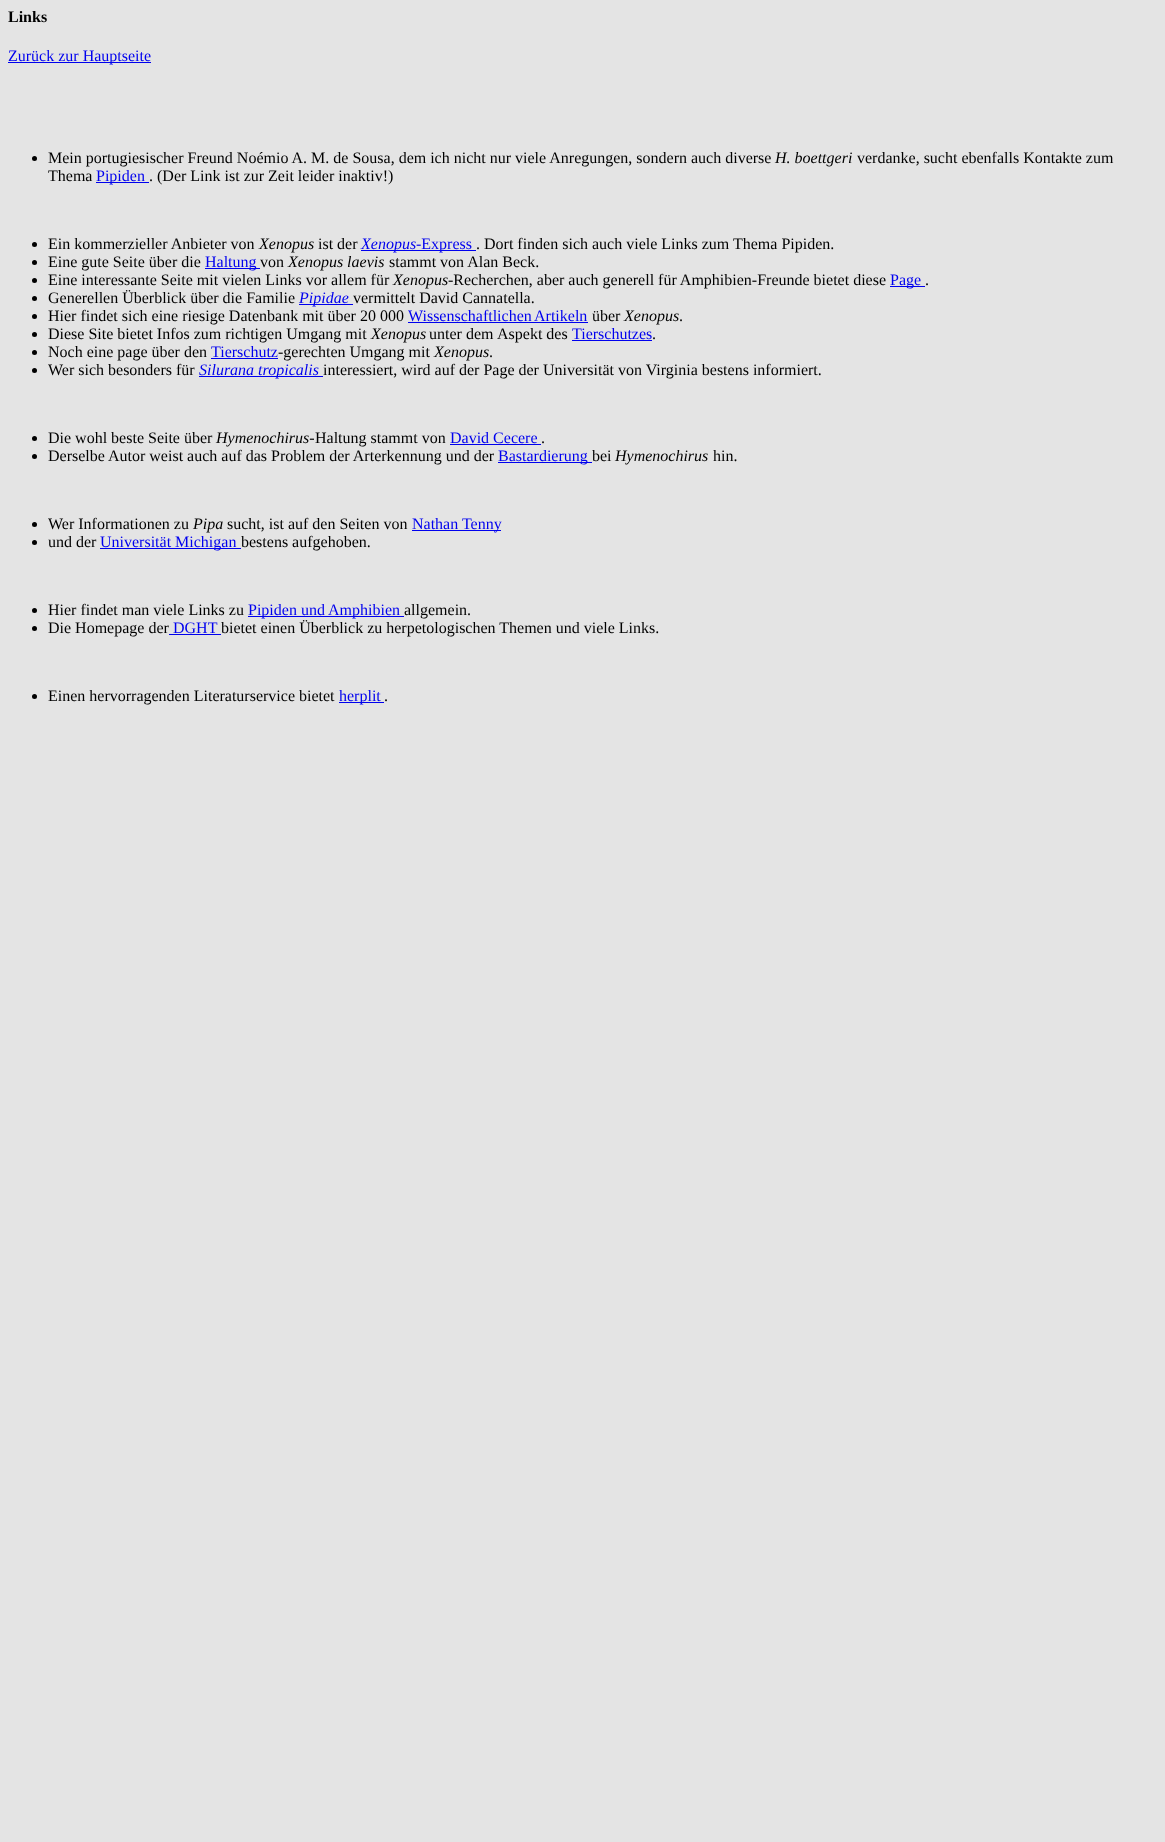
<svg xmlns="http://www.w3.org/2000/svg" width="1165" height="1842">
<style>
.a{font:bold 16px Liberation Serif;fill:#000}
.b{font:16px Liberation Serif;fill:#00e}
.c{font:16px Liberation Serif;fill:#000}
.d{font:italic 16px Liberation Serif;fill:#000}
.e{font:italic 16px Liberation Serif;fill:#00e}
</style>
<rect width="100%" height="100%" fill="#e4e4e4"/>
<path fill="#00e" d="M8 62h143v1H8z"/>
<circle fill="#000" cx="34.5" cy="158.5" r="2.5"/>
<path fill="#00e" d="M96 182h53v1H96z"/>
<circle fill="#000" cx="34.5" cy="244.5" r="2.5"/>
<path fill="#00e" d="M361 250h115v1H361z"/>
<circle fill="#000" cx="34.5" cy="262.5" r="2.5"/>
<path fill="#00e" d="M205 268h55v1H205z"/>
<circle fill="#000" cx="34.5" cy="280.5" r="2.5"/>
<path fill="#00e" d="M890 286h35v1H890z"/>
<circle fill="#000" cx="34.5" cy="298.5" r="2.5"/>
<path fill="#00e" d="M299 304h54v1H299z"/>
<circle fill="#000" cx="34.5" cy="316.5" r="2.5"/>
<path fill="#00e" d="M408 322h180v1H408z"/>
<circle fill="#000" cx="34.5" cy="334.5" r="2.5"/>
<path fill="#00e" d="M572 340h80v1H572z"/>
<circle fill="#000" cx="34.5" cy="352.5" r="2.5"/>
<path fill="#00e" d="M211 358h67v1H211z"/>
<circle fill="#000" cx="34.5" cy="370.5" r="2.5"/>
<path fill="#00e" d="M199 376h124v1H199z"/>
<circle fill="#000" cx="34.5" cy="438.5" r="2.5"/>
<path fill="#00e" d="M450 444h91v1H450z"/>
<circle fill="#000" cx="34.5" cy="456.5" r="2.5"/>
<path fill="#00e" d="M498 462h94v1H498z"/>
<circle fill="#000" cx="34.5" cy="524.5" r="2.5"/>
<path fill="#00e" d="M412 530h89v1H412z"/>
<circle fill="#000" cx="34.5" cy="542.5" r="2.5"/>
<path fill="#00e" d="M100 548h141v1H100z"/>
<circle fill="#000" cx="34.5" cy="610.5" r="2.5"/>
<path fill="#00e" d="M248 616h156v1H248z"/>
<circle fill="#000" cx="34.5" cy="628.5" r="2.5"/>
<path fill="#00e" d="M169 634h52v1H169z"/>
<circle fill="#000" cx="34.5" cy="696.5" r="2.5"/>
<path fill="#00e" d="M339 702h45v1H339z"/>
<text class="a" x="8" y="22">Links</text>
<text class="b" x="8" y="61">Zurück zur Hauptseite</text>
<text class="c" x="48" y="163">Mein portugiesischer Freund Noémio A. M. de Sousa, dem ich nicht nur viele Anregungen, sondern auch diverse</text>
<text class="d" x="775" y="163">H. boettgeri</text>
<text class="c" x="857" y="163">verdanke, sucht ebenfalls Kontakte zum</text>
<text class="c" x="48" y="181">Thema</text>
<text class="b" x="96" y="181">Pipiden</text>
<text class="c" x="149" y="181">. (Der Link ist zur Zeit leider inaktiv!)</text>
<text class="c" x="48" y="249">Ein kommerzieller Anbieter von</text>
<text class="d" x="259" y="249">Xenopus</text>
<text class="c" x="318" y="249">ist der</text>
<text class="e" x="361" y="249">Xenopus</text>
<text class="b" x="416" y="249">-Express</text>
<text class="c" x="476" y="249">. Dort finden sich auch viele Links zum Thema Pipiden.</text>
<text class="c" x="48" y="267">Eine gute Seite über die</text>
<text class="b" x="205" y="267">Haltung</text>
<text class="c" x="260" y="267">von</text>
<text class="d" x="288" y="267">Xenopus laevis</text>
<text class="c" x="389" y="267">stammt von Alan Beck.</text>
<text class="c" x="48" y="285">Eine interessante Seite mit vielen Links vor allem für</text>
<text class="d" x="393" y="285">Xenopus</text>
<text class="c" x="448" y="285">-Recherchen, aber auch generell für Amphibien-Freunde bietet diese</text>
<text class="b" x="890" y="285">Page</text>
<text class="c" x="925" y="285">.</text>
<text class="c" x="48" y="303">Generellen Überblick über die Familie</text>
<text class="e" x="299" y="303">Pipidae</text>
<text class="c" x="353" y="303">vermittelt David Cannatella.</text>
<text class="c" x="48" y="321">Hier findet sich eine riesige Datenbank mit über 20 000</text>
<text class="b" x="408" y="321">Wissenschaftlichen</text>
<text class="b" x="534" y="321">Artikeln</text>
<text class="c" x="592" y="321">über</text>
<text class="d" x="624" y="321">Xenopus</text>
<text class="c" x="679" y="321">.</text>
<text class="c" x="48" y="339">Diese Site bietet Infos zum richtigen Umgang mit</text>
<text class="d" x="371" y="339">Xenopus</text>
<text class="c" x="429" y="339">unter dem</text>
<text class="c" x="497" y="339">Aspekt des</text>
<text class="b" x="572" y="339">Tierschutzes</text>
<text class="c" x="652" y="339">.</text>
<text class="c" x="48" y="357">Noch eine page über den</text>
<text class="b" x="211" y="357">Tierschutz</text>
<text class="c" x="278" y="357">-gerechten Umgang mit</text>
<text class="d" x="434" y="357">Xenopus</text>
<text class="c" x="489" y="357">.</text>
<text class="c" x="48" y="375">Wer sich besonders für</text>
<text class="e" x="199" y="375">Silurana tropicalis</text>
<text class="c" x="323" y="375">interessiert, wird auf der Page der Universität von Virginia bestens informiert.</text>
<text class="c" x="48" y="443">Die wohl beste Seite über</text>
<text class="d" x="216" y="443">Hymenochirus-</text>
<text class="c" x="315" y="443">Haltung stammt von</text>
<text class="b" x="450" y="443">David Cecere</text>
<text class="c" x="541" y="443">.</text>
<text class="c" x="48" y="461">Derselbe Autor weist auch auf das Problem der Arterkennung und der</text>
<text class="b" x="498" y="461">Bastardierung</text>
<text class="c" x="592" y="461">bei</text>
<text class="d" x="615" y="461">Hymenochirus</text>
<text class="c" x="713" y="461">hin.</text>
<text class="c" x="48" y="529">Wer Informationen zu</text>
<text class="d" x="193" y="529">Pipa</text>
<text class="c" x="227" y="529">sucht, ist auf den Seiten von</text>
<text class="b" x="412" y="529">Nathan Tenny</text>
<text class="c" x="48" y="547">und der</text>
<text class="b" x="100" y="547">Universität Michigan</text>
<text class="c" x="241" y="547">bestens aufgehoben.</text>
<text class="c" x="48" y="615">Hier findet man viele Links zu</text>
<text class="b" x="248" y="615">Pipiden und Amphibien</text>
<text class="c" x="404" y="615">allgemein.</text>
<text class="c" x="48" y="633">Die Homepage der</text>
<text class="b" x="173" y="633">DGHT</text>
<text class="c" x="221" y="633">bietet einen Überblick zu herpetologischen Themen und viele Links.</text>
<text class="c" x="48" y="701">Einen hervorragenden Literaturservice bietet</text>
<text class="b" x="339" y="701">herplit</text>
<text class="c" x="384" y="701">.</text>
</svg>
